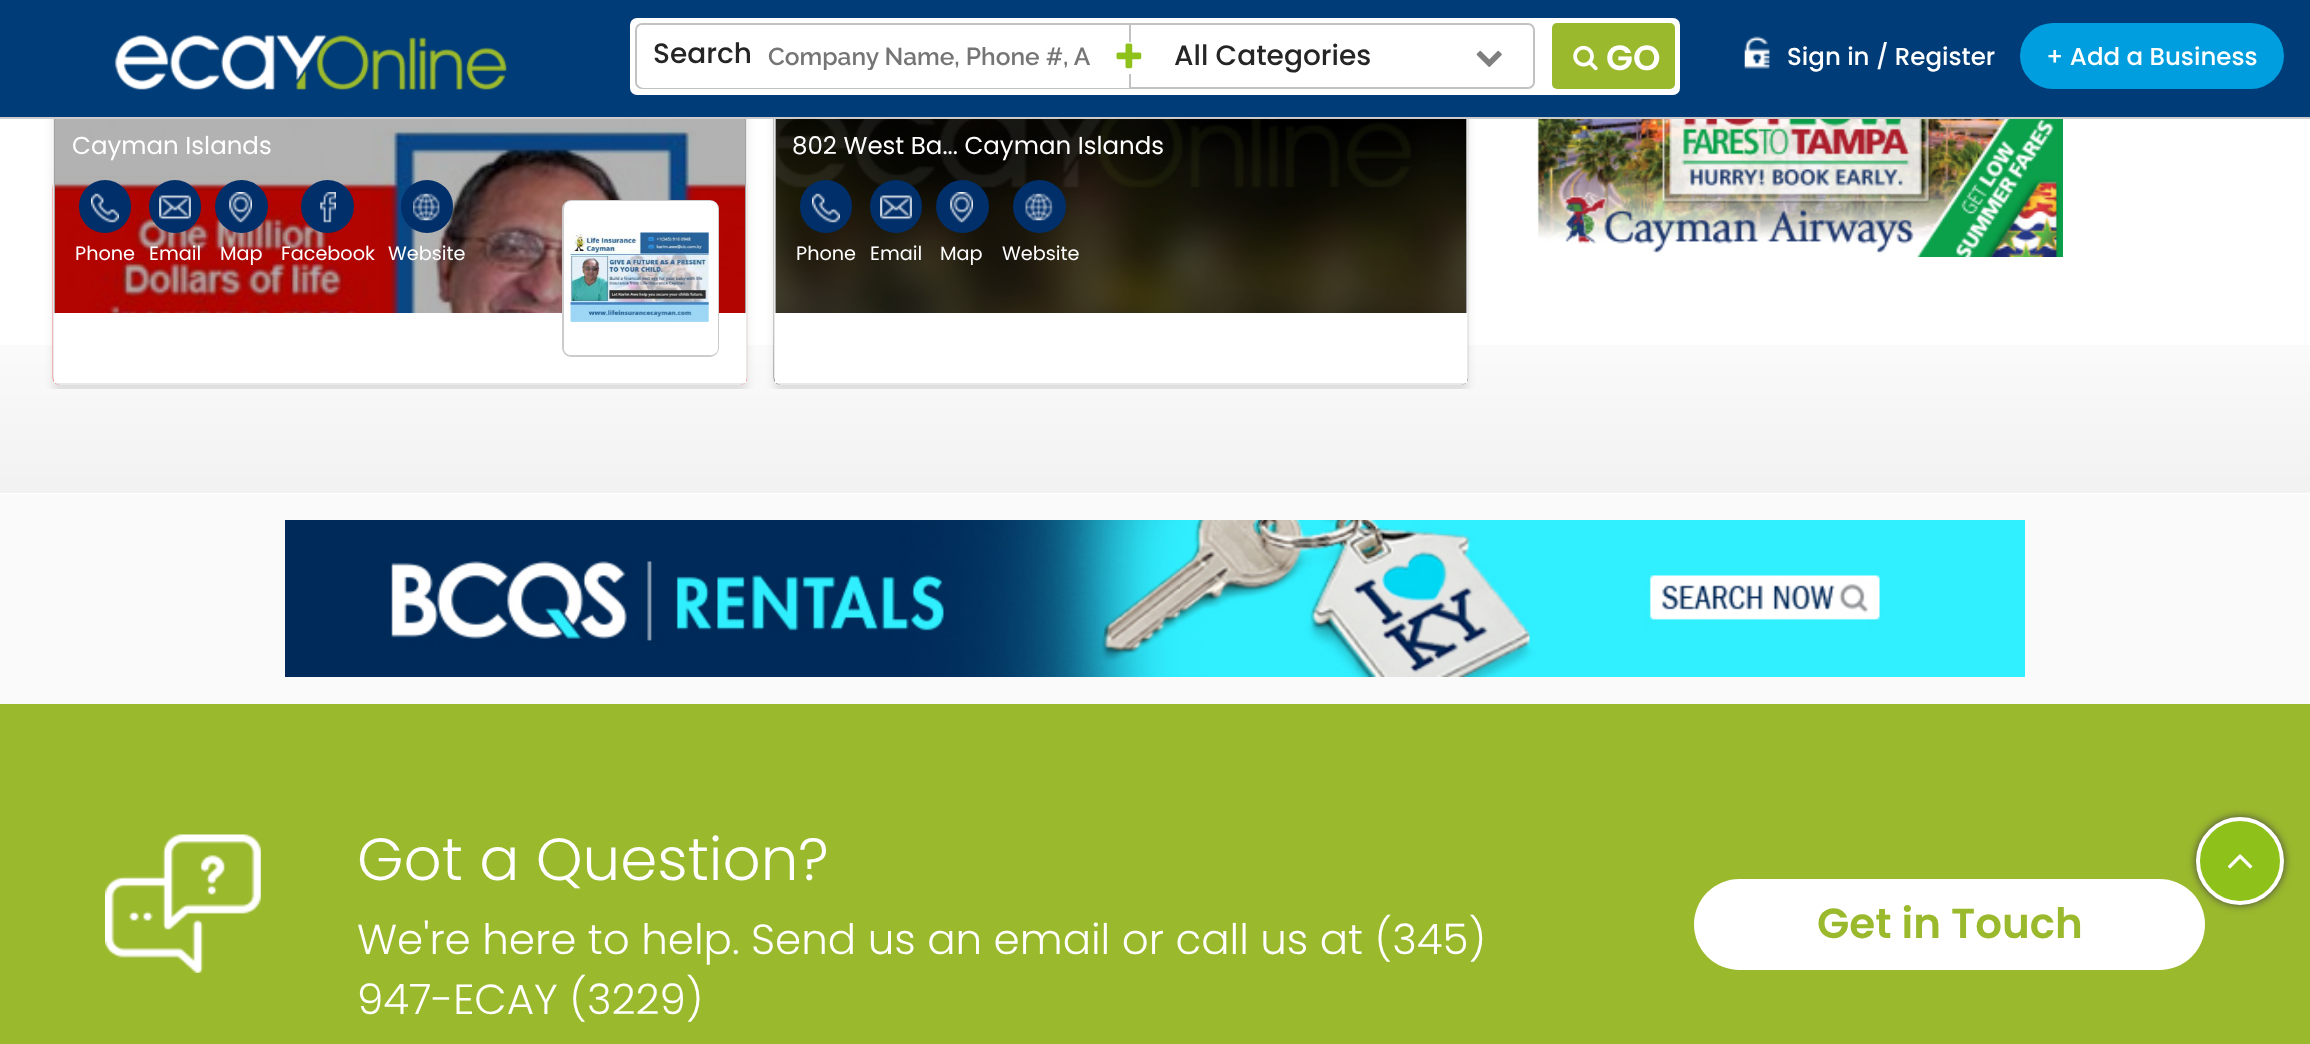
<svg xmlns="http://www.w3.org/2000/svg" width="2310" height="1044">
<style>
.a{font:500 28px Poppins;fill:#252525}
.b{font:600 24.5px Raleway;fill:#757575}
.c{font:600 35px Poppins;fill:#fff}
.d{font:500 24.5px Poppins;fill:#fff}
.e{font:24.5px Poppins;fill:#fff}
.f{font:19.25px Poppins;fill:#fff}
.g{font:300 59.5px Poppins;fill:#fff}
.h{font:300 42px Poppins;fill:#fff}
.i{font:600 42px Poppins;fill:#9bb92d}
</style>
<defs>
<clipPath id="clip1"><path d="M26 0h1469v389H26z"/></clipPath>
<clipPath id="clip2"><path d="M768 42h329v28H768z"/></clipPath>
</defs>
<rect width="100%" height="100%" fill="#fff"/>
<image href="6.png" x="0" y="345" width="2310" height="148"/>
<g clip-path="url(#clip1)">
<rect fill="#0000001a" filter="blur(4.5px)" x="53" y="-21" width="694" height="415" rx="7"/>
</g>
<image href="7.png" x="52" y="119" width="696" height="266"/>
<rect fill="none" stroke="#e9e9e9" stroke-width="2" x="54" y="-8" width="692" height="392" rx="6"/>
<g clip-path="url(#clip1)">
<rect fill="#0000001a" filter="blur(4.5px)" x="774" y="-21" width="694" height="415" rx="7"/>
</g>
<image href="14.png" x="773" y="119" width="696" height="266"/>
<rect fill="none" stroke="#e9e9e9" stroke-width="2" x="775" y="-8" width="692" height="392" rx="6"/>
<path fill="#003c77" d="M0 0h2310v117H0z"/>
<path fill="#ccc" d="M0 117h2310v2H0z"/>
<image href="1.png" x="114" y="35" width="393" height="55"/>
<rect fill="#fff" x="630" y="18" width="1050" height="77" rx="7"/>
<rect fill="none" stroke="#c2c2c2" stroke-width="2" x="636" y="24" width="898" height="64" rx="6"/>
<path fill="#fff" d="M644 25h487v63h-487c-4 0-7-3-7-7v-49c0-4 3-7 7-7z"/>
<path fill="#c2c2c2" d="M1129 25h2v63H1129z"/>
<path fill="#fff" d="M1129 42h2v32H1129z"/>
<image href="2.png" x="1116" y="43" width="26" height="26"/>
<image href="3.png" x="1476" y="50" width="26" height="17"/>
<rect fill="#9bb92d" x="1552" y="23" width="123" height="66" rx="5"/>
<image href="4.png" x="1573" y="45" width="25" height="26"/>
<image href="5.png" x="1744" y="36" width="26" height="33"/>
<rect fill="#009ede" x="2020" y="23" width="264" height="66" rx="33"/>
<path fill="#0000004d" d="M54 119h692v194H54z"/>
<rect fill="#002f6a" x="79" y="180" width="52" height="53" rx="26"/>
<image href="8.png" x="91" y="193" width="28" height="30"/>
<rect fill="#002f6a" x="149" y="180" width="52" height="53" rx="26"/>
<image href="9.png" x="159" y="195" width="32" height="25"/>
<circle fill="#002f6a" cx="241.5" cy="206.5" r="26.5"/>
<image href="10.png" x="229" y="192" width="23" height="31"/>
<circle fill="#002f6a" cx="327.5" cy="206.5" r="26.5"/>
<image href="11.png" x="320" y="192" width="16" height="31"/>
<rect fill="#002f6a" x="401" y="180" width="52" height="53" rx="26"/>
<image href="12.png" x="413" y="193" width="27" height="28"/>
<path fill="#fff" d="M54 313h692v70H54z"/>
<rect fill="none" stroke="#ccc" stroke-width="2" x="563" y="201" width="155" height="155" rx="8"/>
<rect fill="#fff" x="564" y="201" width="154" height="154" rx="7"/>
<image href="13.png" x="570" y="232" width="139" height="90"/>
<path fill="#0000004d" d="M775 119h692v194H775z"/>
<rect fill="#002f6a" x="800" y="180" width="52" height="53" rx="26"/>
<image href="15.png" x="812" y="193" width="28" height="30"/>
<rect fill="#002f6a" x="870" y="180" width="52" height="53" rx="26"/>
<image href="16.png" x="880" y="195" width="32" height="25"/>
<circle fill="#002f6a" cx="962.5" cy="206.5" r="26.5"/>
<image href="17.png" x="950" y="192" width="23" height="31"/>
<circle fill="#002f6a" cx="1039.5" cy="206.5" r="26.5"/>
<image href="18.png" x="1025" y="193" width="28" height="28"/>
<path fill="#fff" d="M775 313h692v70H775z"/>
<image href="19.png" x="1537" y="119" width="526" height="138"/>
<path fill="#fafafa" d="M0 494h2310v210H0z"/>
<image href="20.png" x="285" y="520" width="1740" height="157"/>
<path fill="#9bb92d" d="M0 704h2310v340H0z"/>
<image href="21.png" x="105" y="834" width="156" height="139"/>
<rect fill="#fff" x="1694" y="879" width="511" height="91" rx="45.5"/>
<rect fill="#444" filter="blur(4.5px)" x="2196" y="817" width="88" height="88" rx="44"/>
<circle fill="#8ec11a" stroke="#fff" stroke-width="4" cx="2240" cy="861" r="42"/>
<image href="22.png" x="2227" y="854" width="26" height="15"/>
<text class="a" x="653" y="63">Search</text>
<g clip-path="url(#clip2)">
<text class="b" x="768" y="65">Company Name, Phone #, A</text>
</g>
<text class="a" x="1174" y="65">All Categories</text>
<text class="c" x="1606" y="70">GO</text>
<text class="d" x="1787" y="65">Sign in / Register</text>
<text class="d" x="2046" y="65">+ Add a Business</text>
<text class="e" x="72" y="154">Cayman Islands</text>
<text class="f" x="75" y="260">Phone</text>
<text class="f" x="149" y="260">Email</text>
<text class="f" x="220" y="260">Map</text>
<text class="f" x="281" y="260">Facebook</text>
<text class="f" x="388" y="260">Website</text>
<text class="e" x="792" y="154">802 West Ba... Cayman Islands</text>
<text class="f" x="796" y="260">Phone</text>
<text class="f" x="870" y="260">Email</text>
<text class="f" x="940" y="260">Map</text>
<text class="f" x="1002" y="260">Website</text>
<text class="g" x="357" y="880">Got a Question?</text>
<text class="h" x="357" y="954">We're here to help. Send us an email or call us at (345)</text>
<text class="h" x="357" y="1014">947-ECAY (3229)</text>
<text class="i" x="1817" y="938">Get in Touch</text>
</svg>
